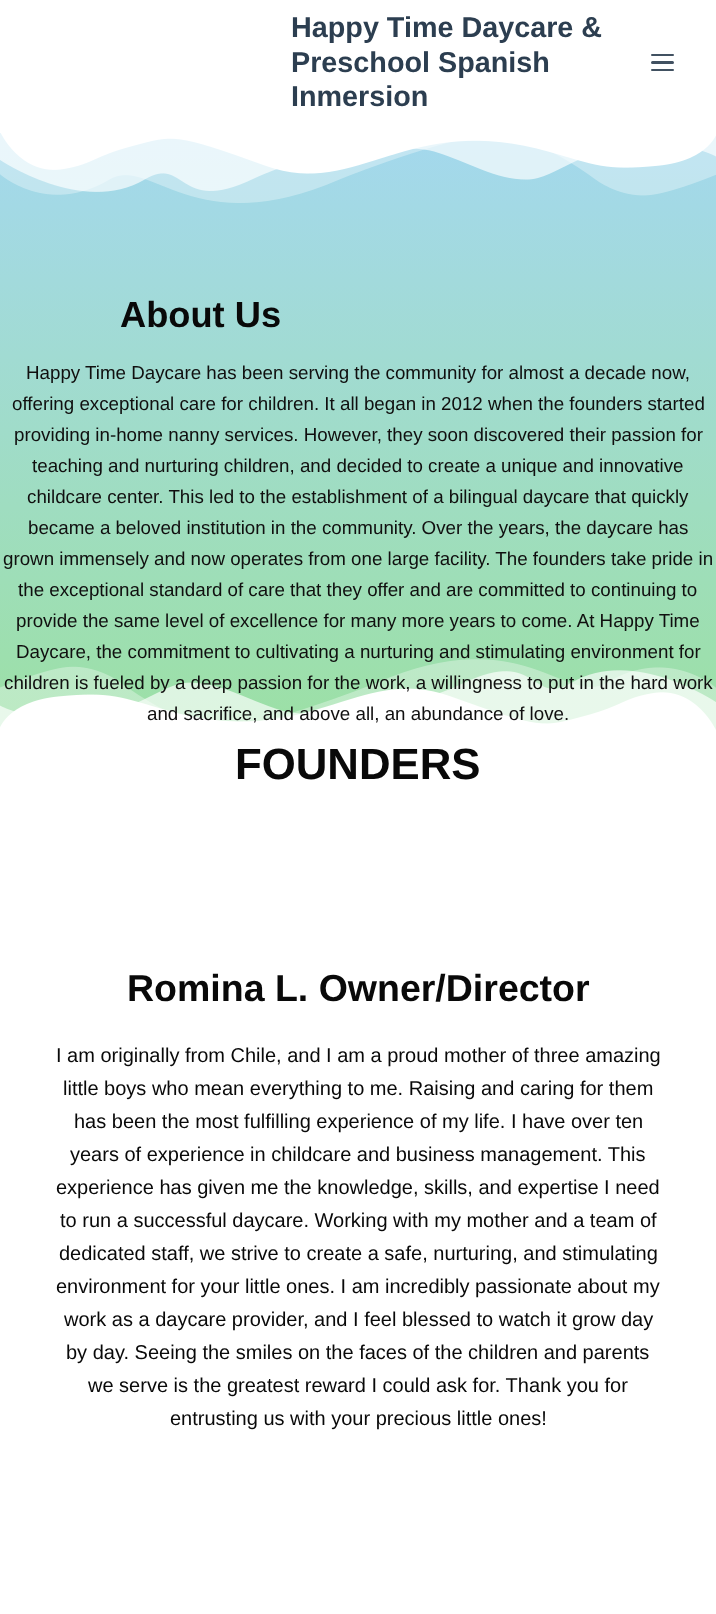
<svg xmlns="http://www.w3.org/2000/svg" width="716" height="1614">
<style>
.a{font:bold 28.75px Liberation Sans;fill:#2c3e50}
.b{font:bold 36.25px Liberation Sans;fill:#090909}
.c{font:18.75px Liberation Sans;fill:#100f0f}
.d{font:bold 43.75px Liberation Sans;fill:#090909}
.e{font:bold 37.5px Liberation Sans;fill:#090909}
.f{font:20px Liberation Sans;fill:#090909}
</style>
<defs>
<linearGradient id="g1" gradientUnits="userSpaceOnUse" x1="358" y1="132" x2="358" y2="730"><stop offset="0" stop-color="#a4d8ee"/><stop offset="1" stop-color="#9ce0a5"/></linearGradient>
</defs>
<rect width="100%" height="100%" fill="#fff"/>
<rect fill="#415161" x="651" y="54" width="23" height="2" rx="1"/>
<rect fill="#415161" x="651" y="61" width="23" height="3" rx="1.5"/>
<rect fill="#415161" x="651" y="69" width="23" height="2" rx="1"/>
<path fill="url(#g1)" d="M0 133h716v597H0z"/>
<image href="1.png" x="0" y="133" width="716" height="70"/>
<image href="2.png" x="0" y="659" width="716" height="71"/>
<text class="a" x="291" y="37">Happy Time Daycare &amp;</text>
<text class="a" x="291" y="72">Preschool Spanish</text>
<text class="a" x="291" y="106">Inmersion</text>
<text class="b" x="120" y="327">About Us</text>
<text class="c" x="26" y="379">Happy Time Daycare has been serving the community for almost a decade now,</text>
<text class="c" x="12" y="410">offering exceptional care for children. It all began in 2012 when the founders started</text>
<text class="c" x="14" y="441">providing in-home nanny services. However, they soon discovered their passion for</text>
<text class="c" x="32" y="472">teaching and nurturing children, and decided to create a unique and innovative</text>
<text class="c" x="27" y="503">childcare center. This led to the establishment of a bilingual daycare that quickly</text>
<text class="c" x="28" y="534">became a beloved institution in the community. Over the years, the daycare has</text>
<text class="c" x="3" y="565">grown immensely and now operates from one large facility. The founders take pride in</text>
<text class="c" x="18" y="596">the exceptional standard of care that they offer and are committed to continuing to</text>
<text class="c" x="16" y="627">provide the same level of excellence for many more years to come. At Happy Time</text>
<text class="c" x="16" y="658">Daycare, the commitment to cultivating a nurturing and stimulating environment for</text>
<text class="c" x="4" y="689">children is fueled by a deep passion for the work, a willingness to put in the hard work</text>
<text class="c" x="147" y="720">and sacrifice, and above all, an abundance of love.</text>
<text class="d" x="235" y="779">FOUNDERS</text>
<text class="e" x="127" y="1001">Romina L. Owner/Director</text>
<text class="f" x="56" y="1062">I am originally from Chile, and I am a proud mother of three amazing</text>
<text class="f" x="63" y="1095">little boys who mean everything to me. Raising and caring for them</text>
<text class="f" x="74" y="1128">has been the most fulfilling experience of my life. I have over ten</text>
<text class="f" x="70" y="1161">years of experience in childcare and business management. This</text>
<text class="f" x="56" y="1194">experience has given me the knowledge, skills, and expertise I need</text>
<text class="f" x="60" y="1227">to run a successful daycare. Working with my mother and a team of</text>
<text class="f" x="59" y="1260">dedicated staff, we strive to create a safe, nurturing, and stimulating</text>
<text class="f" x="56" y="1293">environment for your little ones. I am incredibly passionate about my</text>
<text class="f" x="64" y="1326">work as a daycare provider, and I feel blessed to watch it grow day</text>
<text class="f" x="66" y="1359">by day. Seeing the smiles on the faces of the children and parents</text>
<text class="f" x="88" y="1392">we serve is the greatest reward I could ask for. Thank you for</text>
<text class="f" x="170" y="1425">entrusting us with your precious little ones!</text>
</svg>
